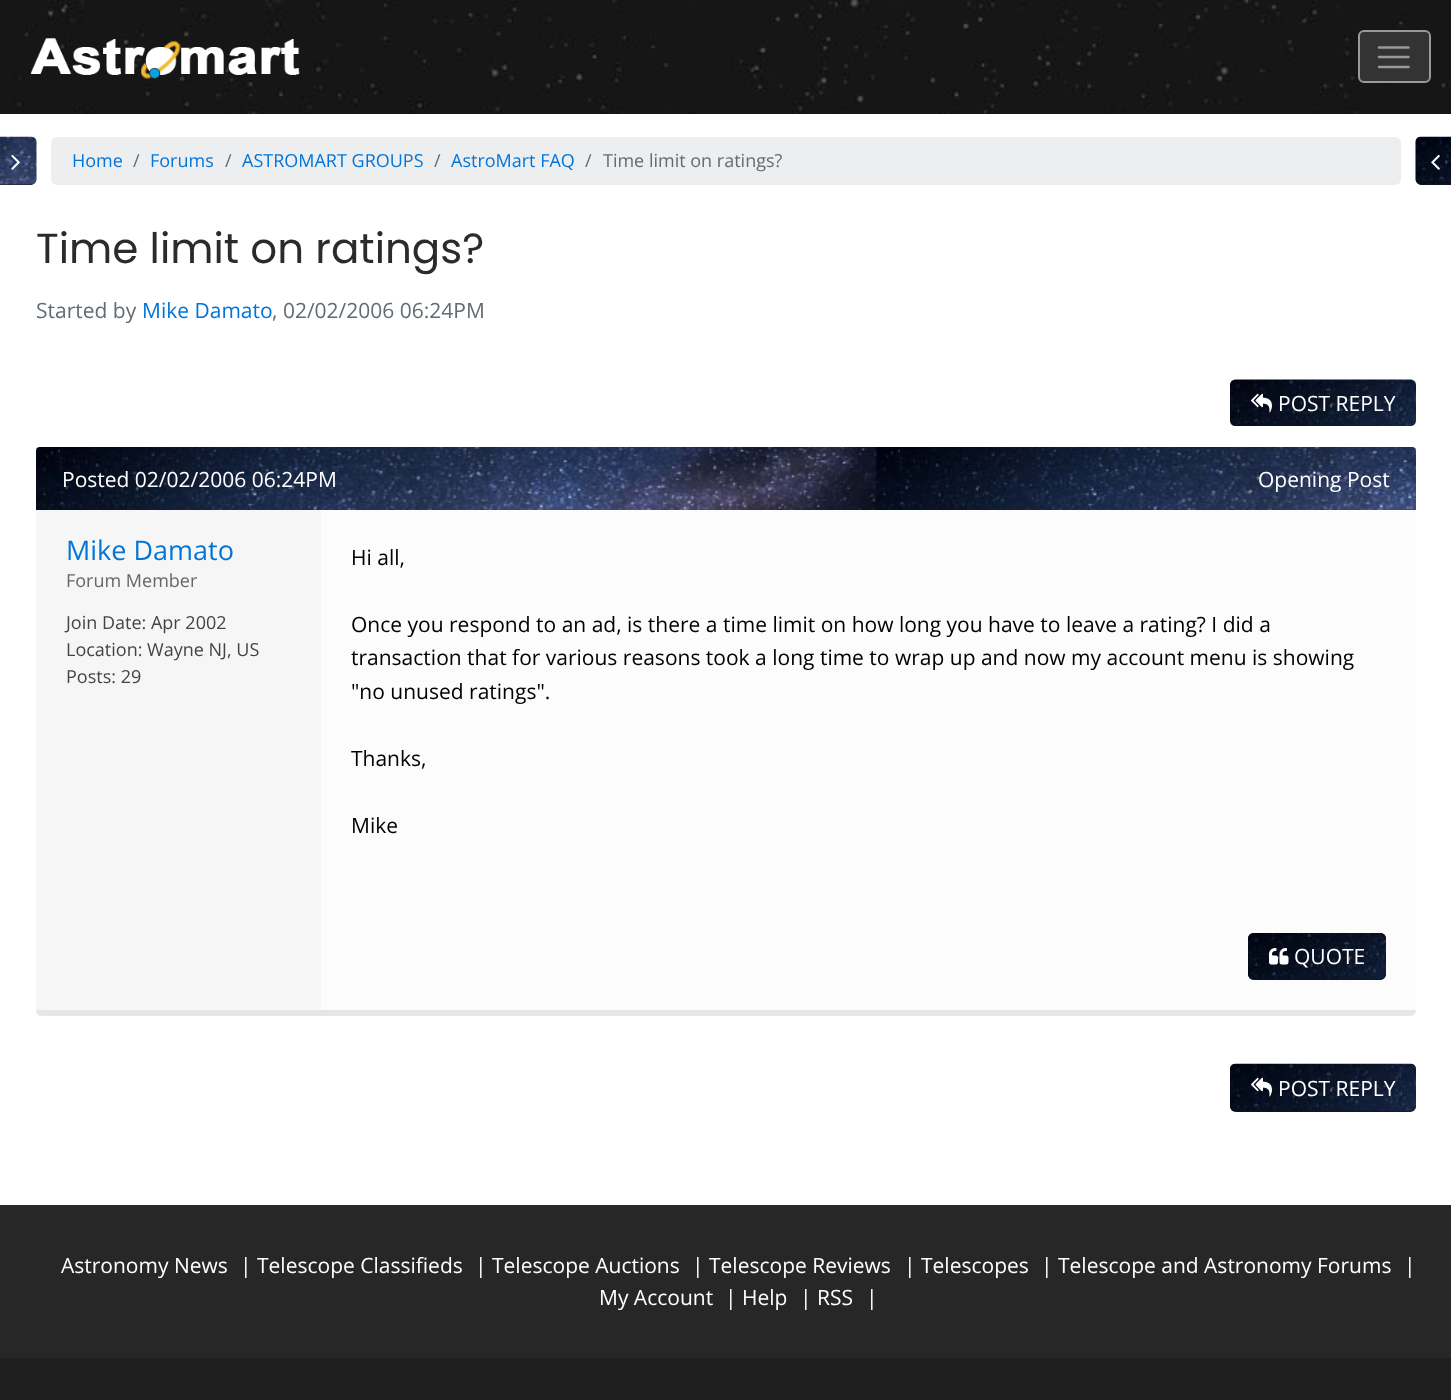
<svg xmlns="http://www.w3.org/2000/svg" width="1451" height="1400">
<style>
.a{font:18px Open Sans;fill:#0275d8}
.b{font:18px Open Sans;fill:#636c72}
.c{font:42px Poppins;fill:#292b2c}
.d{font:21px Open Sans;fill:#636c72}
.e{font:21px Open Sans;fill:#0275d8}
.f{font:21px Open Sans;fill:#fff}
.g{font:27px Open Sans;fill:#0275d8}
.h{font:18px Open Sans;fill:#666}
.i{font:18px Open Sans;fill:#444}
.j{font:21px Open Sans;fill:#000}
</style>
<rect width="100%" height="100%" fill="#fff"/>
<image href="1.png" x="0" y="0" width="1451" height="114"/>
<image href="2.png" x="30" y="38" width="270" height="41"/>
<rect fill="#333" stroke="#999" stroke-width="2" x="1359" y="31" width="71" height="51" rx="5"/>
<path fill="none" stroke="#999" stroke-width="2.5" stroke-linecap="round" d="M1379 47.5h29.5m-29.5 9.5h29.5m-29.5 10h29.5"/>
<path fill="#161616" d="M0 137h30c3.5 0 6 2.5 6 6v36c0 3.5-2.5 6-6 6h-30z"/>
<image href="3.png" x="0" y="136" width="37" height="49"/>
<image href="4.png" x="11" y="154" width="9" height="16"/>
<rect fill="#eceeef" x="51" y="137" width="1350" height="48" rx="6"/>
<image href="5.png" x="1230" y="379" width="186" height="47"/>
<image href="6.png" x="1251" y="393" width="21" height="20"/>
<path fill="#e6e6e6" d="M36 1004c0 5-1 12 6 12h1368c7 0 6-7 6-12c0 3-2 6-5 6h-1370c-3 0-5-3-5-6z"/>
<image href="7.png" x="36" y="447" width="1380" height="63"/>
<path fill="#fcfcfc" d="M321 510h1095v500H321z"/>
<path fill="#f6f6f6" d="M36 510h285v500H36z"/>
<rect fill="#161616" x="1248" y="933" width="138" height="47" rx="6"/>
<image href="8.png" x="1247" y="933" width="140" height="47"/>
<image href="9.png" x="1269" y="948" width="20" height="17"/>
<rect fill="#161616" x="1230" y="1064" width="186" height="48" rx="6"/>
<image href="10.png" x="1230" y="1063" width="186" height="49"/>
<image href="11.png" x="1251" y="1077" width="21" height="20"/>
<path fill="#161616" d="M1422 137h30v48h-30c-3.5 0-6-2.5-6-6v-36c0-3.5 2.5-6 6-6z"/>
<image href="12.png" x="1415" y="136" width="36" height="49"/>
<image href="13.png" x="1431" y="154" width="9" height="16"/>
<path fill="#272727" d="M0 1205h1451v153H0z"/>
<path fill="#1f1f1f" d="M0 1358h1451v42H0z"/>
<text class="a" x="72" y="167">Home</text>
<text class="b" x="133" y="167">/</text>
<text class="a" x="150" y="167">Forums</text>
<text class="b" x="225" y="167">/</text>
<text class="a" x="242" y="167">ASTROMART GROUPS</text>
<text class="b" x="434" y="167">/</text>
<text class="a" x="451" y="167">AstroMart FAQ</text>
<text class="b" x="585" y="167">/</text>
<text class="b" x="603" y="167">Time limit on ratings?</text>
<text class="c" x="36" y="263">Time limit on ratings?</text>
<text class="d" x="36" y="318">Started by</text>
<text class="e" x="142" y="318">Mike Damato</text>
<text class="d" x="272" y="318">, 02/02/2006 06:24PM</text>
<text class="f" x="1278" y="411">POST REPLY</text>
<text class="f" x="62" y="487">Posted 02/02/2006 06:24PM</text>
<text class="f" x="1258" y="487">Opening Post</text>
<text class="g" x="66" y="560">Mike Damato</text>
<text class="h" x="66" y="587">Forum Member</text>
<text class="i" x="66" y="629">Join Date: Apr 2002</text>
<text class="i" x="66" y="656">Location: Wayne NJ, US</text>
<text class="i" x="66" y="683">Posts: 29</text>
<text class="j" x="351" y="565">Hi all,</text>
<text class="j" x="351" y="632">Once you respond to an ad, is there a time limit on how long you have to leave a rating? I did a</text>
<text class="j" x="351" y="665">transaction that for various reasons took a long time to wrap up and now my account menu is showing</text>
<text class="j" x="351" y="699">"no unused ratings".</text>
<text class="j" x="351" y="766">Thanks,</text>
<text class="j" x="351" y="833">Mike</text>
<text class="f" x="1294" y="964">QUOTE</text>
<text class="f" x="1278" y="1096">POST REPLY</text>
<text class="f" x="61" y="1273">Astronomy News</text>
<text class="f" x="240" y="1273">| Telescope Classifieds</text>
<text class="f" x="475" y="1273">| Telescope Auctions</text>
<text class="f" x="692" y="1273">| Telescope Reviews</text>
<text class="f" x="904" y="1273">| Telescopes</text>
<text class="f" x="1041" y="1273">| Telescope and Astronomy Forums</text>
<text class="f" x="1404" y="1273">|</text>
<text class="f" x="599" y="1305">My Account</text>
<text class="f" x="725" y="1305">| Help</text>
<text class="f" x="800" y="1305">| RSS</text>
<text class="f" x="866" y="1305">|</text>
</svg>
